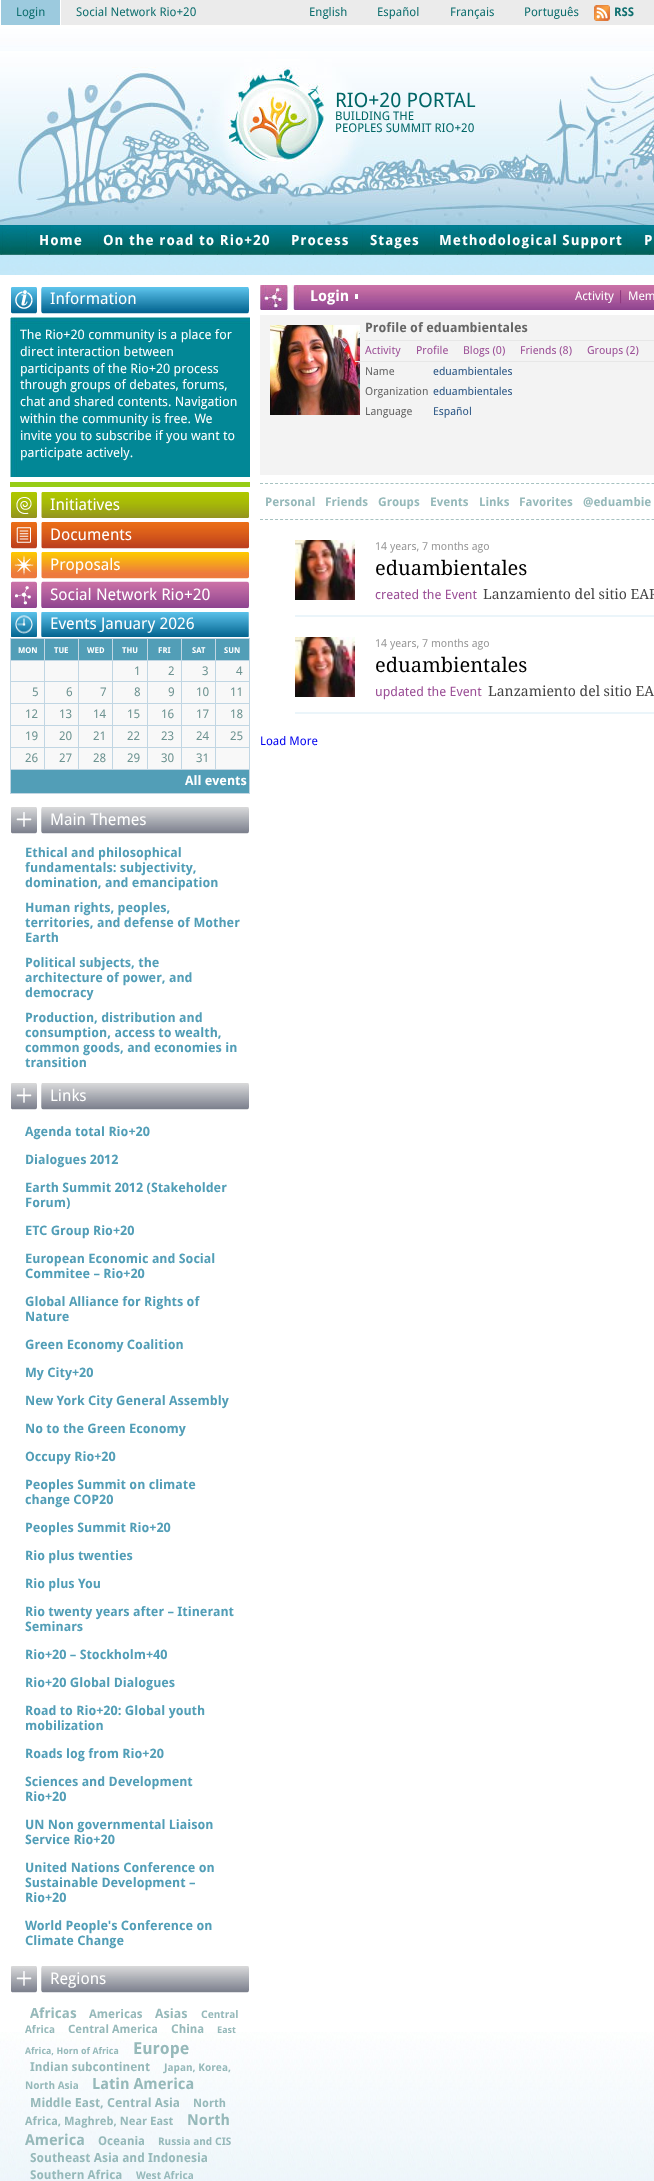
<svg xmlns="http://www.w3.org/2000/svg" width="654" height="2181">
<style>
.a{font:12px Droid Sans;fill:#0f6f6f}
.b{font:bold 12px Droid Sans;fill:#0f6f6f}
.c{font:20px Droid Sans;fill:#066}
.d{font:12px Droid Sans;fill:#066}
.e{font:bold 14px Droid Sans;letter-spacing:1px;fill:#fff}
.f{font:16px Droid Sans;fill:#fff}
.g{font:13px Droid Sans;fill:#fff}
.h{font:bold 8px Droid Sans;fill:#fff}
.i{font:12px Droid Sans;fill:#6d9391}
.j{font:bold 13px Droid Sans;fill:#fff}
.k{font:bold 13px Droid Sans;fill:#529eb7}
.l{font:bold 15px Droid Sans;fill:#fff}
.m{font:12px Droid Sans;fill:#fff}
.n{font:13px Droid Sans;fill:#8c357c}
.o{font:bold 13px Droid Sans;fill:#666}
.p{font:11px Droid Sans;fill:#9b4e96}
.q{font:11px Droid Sans;fill:#666}
.r{font:11px Droid Sans;fill:#2a5685}
.s{font:bold 12px Droid Sans;fill:#96b9ba}
.t{font:11px Droid Sans;fill:#999}
.u{font:20px Droid Serif;fill:#000}
.v{font:13px Droid Sans;fill:#9b4e96}
.w{font:14px Droid Serif;fill:#444}
.x{font:12px Droid Sans;fill:#00e}
.y{font:bold 14px Droid Sans;fill:#96b9ba}
.z{font:bold 13px Droid Sans;fill:#96b9ba}
.a1{font:bold 10.5px Droid Sans;fill:#96b9ba}
.b1{font:bold 11.5px Droid Sans;fill:#96b9ba}
.c1{font:bold 9.25px Droid Sans;fill:#96b9ba}
.d1{font:bold 16.5px Droid Sans;fill:#96b9ba}
.e1{font:bold 12.25px Droid Sans;fill:#96b9ba}
.f1{font:bold 15.25px Droid Sans;fill:#96b9ba}
.g1{font:bold 12.5px Droid Sans;fill:#96b9ba}
.h1{font:bold 15px Droid Sans;fill:#96b9ba}
</style>
<rect width="100%" height="100%" fill="#fff"/>
<image href="1.png" x="0" y="25" width="654" height="250"/>
<path fill="#ebebeb" d="M61 0h593v25H61z"/>
<path fill="#9ccade" d="M1 0h59v25H1z"/>
<image href="2.png" x="594" y="5" width="16" height="16"/>
<image href="3.png" x="0" y="51" width="654" height="174"/>
<image href="4.png" x="0" y="225" width="654" height="30"/>
<image href="5.png" x="0" y="2032" width="654" height="149"/>
<image href="6.png" x="11" y="287" width="238" height="27"/>
<image href="7.png" x="10" y="317" width="240" height="160"/>
<path fill="#96cc16" d="M10 482h240v5H10z"/>
<image href="8.png" x="11" y="492" width="238" height="26"/>
<image href="9.png" x="11" y="521" width="239" height="29"/>
<image href="10.png" x="11" y="552" width="238" height="27"/>
<image href="11.png" x="11" y="581" width="238" height="27"/>
<image href="12.png" x="10" y="612" width="240" height="25"/>
<path fill="#529eb7" d="M11 639h33v21H11z"/>
<path fill="#c1d6e3" d="M215 638h35v1H215z"/>
<path fill="#c1d6e3" d="M215 660h35v1H215z"/>
<path fill="#c1d6e3" d="M215 681h35v1H215z"/>
<path fill="#c1d6e3" d="M215 703h35v1H215z"/>
<path fill="#c1d6e3" d="M215 725h35v1H215z"/>
<path fill="#c1d6e3" d="M215 747h35v1H215z"/>
<path fill="#c1d6e3" d="M249 769h1v25H249z"/>
<path fill="#c1d6e3" d="M249 747h1v23H249z"/>
<path fill="#c1d6e3" d="M215 769h35v1H215z"/>
<path fill="#c1d6e3" d="M215 747h1v23H215z"/>
<path fill="#c1d6e3" d="M181 747h35v1H181z"/>
<path fill="#c1d6e3" d="M215 725h1v23H215z"/>
<path fill="#c1d6e3" d="M181 725h35v1H181z"/>
<path fill="#c1d6e3" d="M215 703h1v23H215z"/>
<path fill="#c1d6e3" d="M181 703h35v1H181z"/>
<path fill="#c1d6e3" d="M215 681h1v23H215z"/>
<path fill="#c1d6e3" d="M181 681h35v1H181z"/>
<path fill="#c1d6e3" d="M215 660h1v22H215z"/>
<path fill="#c1d6e3" d="M181 660h35v1H181z"/>
<path fill="#c1d6e3" d="M215 638h1v23H215z"/>
<path fill="#c1d6e3" d="M181 638h35v1H181z"/>
<path fill="#c1d6e3" d="M181 769h35v1H181z"/>
<path fill="#c1d6e3" d="M181 747h1v23H181z"/>
<path fill="#c1d6e3" d="M147 747h35v1H147z"/>
<path fill="#c1d6e3" d="M181 725h1v23H181z"/>
<path fill="#c1d6e3" d="M147 725h35v1H147z"/>
<path fill="#c1d6e3" d="M181 703h1v23H181z"/>
<path fill="#c1d6e3" d="M147 703h35v1H147z"/>
<path fill="#c1d6e3" d="M181 681h1v23H181z"/>
<path fill="#c1d6e3" d="M147 681h35v1H147z"/>
<path fill="#c1d6e3" d="M181 660h1v22H181z"/>
<path fill="#c1d6e3" d="M147 660h35v1H147z"/>
<path fill="#c1d6e3" d="M181 638h1v23H181z"/>
<path fill="#c1d6e3" d="M147 638h35v1H147z"/>
<path fill="#c1d6e3" d="M147 769h35v1H147z"/>
<path fill="#c1d6e3" d="M147 747h1v23H147z"/>
<path fill="#c1d6e3" d="M112 747h36v1H112z"/>
<path fill="#c1d6e3" d="M147 725h1v23H147z"/>
<path fill="#c1d6e3" d="M112 725h36v1H112z"/>
<path fill="#c1d6e3" d="M147 703h1v23H147z"/>
<path fill="#c1d6e3" d="M112 703h36v1H112z"/>
<path fill="#c1d6e3" d="M147 681h1v23H147z"/>
<path fill="#c1d6e3" d="M112 681h36v1H112z"/>
<path fill="#c1d6e3" d="M147 660h1v22H147z"/>
<path fill="#c1d6e3" d="M112 660h36v1H112z"/>
<path fill="#c1d6e3" d="M147 638h1v23H147z"/>
<path fill="#c1d6e3" d="M112 638h36v1H112z"/>
<path fill="#c1d6e3" d="M112 769h36v1H112z"/>
<path fill="#c1d6e3" d="M112 747h1v23H112z"/>
<path fill="#c1d6e3" d="M78 747h35v1H78z"/>
<path fill="#c1d6e3" d="M112 725h1v23H112z"/>
<path fill="#c1d6e3" d="M78 725h35v1H78z"/>
<path fill="#c1d6e3" d="M112 703h1v23H112z"/>
<path fill="#c1d6e3" d="M78 703h35v1H78z"/>
<path fill="#c1d6e3" d="M112 681h1v23H112z"/>
<path fill="#c1d6e3" d="M78 681h35v1H78z"/>
<path fill="#c1d6e3" d="M112 660h1v22H112z"/>
<path fill="#c1d6e3" d="M78 660h35v1H78z"/>
<path fill="#c1d6e3" d="M112 638h1v23H112z"/>
<path fill="#c1d6e3" d="M78 638h35v1H78z"/>
<path fill="#c1d6e3" d="M78 769h35v1H78z"/>
<path fill="#c1d6e3" d="M78 747h1v23H78z"/>
<path fill="#c1d6e3" d="M44 747h35v1H44z"/>
<path fill="#c1d6e3" d="M78 725h1v23H78z"/>
<path fill="#c1d6e3" d="M44 725h35v1H44z"/>
<path fill="#c1d6e3" d="M78 703h1v23H78z"/>
<path fill="#c1d6e3" d="M44 703h35v1H44z"/>
<path fill="#c1d6e3" d="M78 681h1v23H78z"/>
<path fill="#c1d6e3" d="M44 681h35v1H44z"/>
<path fill="#c1d6e3" d="M78 660h1v22H78z"/>
<path fill="#c1d6e3" d="M44 660h35v1H44z"/>
<path fill="#c1d6e3" d="M78 638h1v23H78z"/>
<path fill="#c1d6e3" d="M44 638h35v1H44z"/>
<path fill="#c1d6e3" d="M44 769h35v1H44z"/>
<path fill="#c1d6e3" d="M44 747h1v23H44z"/>
<path fill="#c1d6e3" d="M10 747h35v1H10z"/>
<path fill="#c1d6e3" d="M44 725h1v23H44z"/>
<path fill="#c1d6e3" d="M10 725h35v1H10z"/>
<path fill="#c1d6e3" d="M44 703h1v23H44z"/>
<path fill="#c1d6e3" d="M10 703h35v1H10z"/>
<path fill="#c1d6e3" d="M44 681h1v23H44z"/>
<path fill="#c1d6e3" d="M10 681h35v1H10z"/>
<path fill="#c1d6e3" d="M44 660h1v22H44z"/>
<path fill="#c1d6e3" d="M10 660h35v1H10z"/>
<path fill="#c1d6e3" d="M44 638h1v23H44z"/>
<path fill="#c1d6e3" d="M10 638h35v1H10z"/>
<path fill="#c1d6e3" d="M10 793h240v1H10z"/>
<path fill="#c1d6e3" d="M10 769h1v25H10z"/>
<path fill="#c1d6e3" d="M10 769h35v1H10z"/>
<path fill="#c1d6e3" d="M10 747h1v23H10z"/>
<path fill="#c1d6e3" d="M10 725h1v23H10z"/>
<path fill="#c1d6e3" d="M10 703h1v23H10z"/>
<path fill="#c1d6e3" d="M10 681h1v23H10z"/>
<path fill="#c1d6e3" d="M10 660h1v22H10z"/>
<path fill="#c1d6e3" d="M10 638h1v23H10z"/>
<path fill="#529eb7" d="M45 639h33v21H45z"/>
<path fill="#529eb7" d="M79 639h33v21H79z"/>
<path fill="#529eb7" d="M113 639h34v21H113z"/>
<path fill="#529eb7" d="M148 639h33v21H148z"/>
<path fill="#529eb7" d="M182 639h33v21H182z"/>
<path fill="#529eb7" d="M216 639h33v21H216z"/>
<path fill="#c1d6e3" d="M249 725h1v23H249z"/>
<path fill="#c1d6e3" d="M249 703h1v23H249z"/>
<path fill="#c1d6e3" d="M249 681h1v23H249z"/>
<path fill="#c1d6e3" d="M249 660h1v22H249z"/>
<path fill="#c1d6e3" d="M249 638h1v23H249z"/>
<path fill="#f8f8f8" d="M11 661h33v20H11z"/>
<path fill="#f8f8f8" d="M45 661h33v20H45z"/>
<path fill="#f8f8f8" d="M79 661h33v20H79z"/>
<path fill="#f8f8f8" d="M113 661h34v20H113z"/>
<path fill="#f8f8f8" d="M148 661h33v20H148z"/>
<path fill="#f8f8f8" d="M182 661h33v20H182z"/>
<path fill="#f8f8f8" d="M216 661h33v20H216z"/>
<path fill="#f8f8f8" d="M11 682h33v21H11z"/>
<path fill="#f8f8f8" d="M45 682h33v21H45z"/>
<path fill="#f8f8f8" d="M79 682h33v21H79z"/>
<path fill="#f8f8f8" d="M113 682h34v21H113z"/>
<path fill="#f8f8f8" d="M148 682h33v21H148z"/>
<path fill="#f8f8f8" d="M182 682h33v21H182z"/>
<path fill="#f8f8f8" d="M216 682h33v21H216z"/>
<path fill="#f8f8f8" d="M11 704h33v21H11z"/>
<path fill="#f8f8f8" d="M45 704h33v21H45z"/>
<path fill="#f8f8f8" d="M79 704h33v21H79z"/>
<path fill="#f8f8f8" d="M113 704h34v21H113z"/>
<path fill="#f8f8f8" d="M148 704h33v21H148z"/>
<path fill="#f8f8f8" d="M182 704h33v21H182z"/>
<path fill="#f8f8f8" d="M216 704h33v21H216z"/>
<path fill="#f8f8f8" d="M11 726h33v21H11z"/>
<path fill="#f8f8f8" d="M45 726h33v21H45z"/>
<path fill="#f8f8f8" d="M79 726h33v21H79z"/>
<path fill="#f8f8f8" d="M113 726h34v21H113z"/>
<path fill="#f8f8f8" d="M148 726h33v21H148z"/>
<path fill="#f8f8f8" d="M182 726h33v21H182z"/>
<path fill="#f8f8f8" d="M216 726h33v21H216z"/>
<path fill="#f8f8f8" d="M11 748h33v21H11z"/>
<path fill="#f8f8f8" d="M45 748h33v21H45z"/>
<path fill="#f8f8f8" d="M79 748h33v21H79z"/>
<path fill="#f8f8f8" d="M113 748h34v21H113z"/>
<path fill="#f8f8f8" d="M148 748h33v21H148z"/>
<path fill="#f8f8f8" d="M182 748h33v21H182z"/>
<path fill="#f8f8f8" d="M216 748h33v21H216z"/>
<path fill="#529eb7" d="M11 770h238v23H11z"/>
<image href="13.png" x="11" y="807" width="238" height="27"/>
<image href="14.png" x="260" y="285" width="394" height="25"/>
<path fill="#fff" d="M355 294h3v5H355z"/>
<path fill="#f3f3f3" d="M260 315h394v160H260z"/>
<image href="15.png" x="270" y="325" width="90" height="90"/>
<path fill="#e7e7e7" d="M365 340h289v1H365z"/>
<path fill="#e7e7e7" d="M355 361h299v1H355z"/>
<path fill="none" stroke="#a6c2c1" stroke-dasharray="3 2.02" d="M260 483.5h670"/>
<path fill="none" stroke="#a6c2c1" stroke-dasharray="3 2.02" d="M260 519.5h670"/>
<image href="16.png" x="295" y="540" width="60" height="60"/>
<path fill="#ebf5fa" d="M295 615h359v2H295z"/>
<image href="16.png" x="295" y="637" width="60" height="60"/>
<path fill="#ebf5fa" d="M295 712h359v2H295z"/>
<image href="13.png" x="11" y="1083" width="238" height="27"/>
<image href="13.png" x="11" y="1966" width="238" height="27"/>
<text class="a" x="16" y="16">Login</text>
<text class="a" x="76" y="16">Social Network Rio+20</text>
<text class="a" x="309" y="16">English</text>
<text class="a" x="377" y="16">Español</text>
<text class="a" x="450" y="16">Français</text>
<text class="a" x="524" y="16">Português</text>
<text class="b" x="614" y="16">RSS</text>
<text class="c" x="335" y="107">RIO+20 PORTAL</text>
<text class="d" x="335" y="120">BUILDING THE</text>
<text class="d" x="335" y="132">PEOPLES SUMMIT RIO+20</text>
<text class="e" x="39" y="245">Home</text>
<text class="e" x="103" y="245">On the road to Rio+20</text>
<text class="e" x="291" y="245">Process</text>
<text class="e" x="370" y="245">Stages</text>
<text class="e" x="439" y="245">Methodological Support</text>
<text class="e" x="644" y="245">P</text>
<text class="f" x="50" y="304">Information</text>
<text class="g" x="20" y="339">The Rio+20 community is a place for</text>
<text class="g" x="20" y="356">direct interaction between</text>
<text class="g" x="20" y="373">participants of the Rio+20 process</text>
<text class="g" x="20" y="389">through groups of debates, forums,</text>
<text class="g" x="20" y="406">chat and shared contents. Navigation</text>
<text class="g" x="20" y="423">within the community is free. We</text>
<text class="g" x="20" y="440">invite you to subscribe if you want to</text>
<text class="g" x="20" y="457">participate actively.</text>
<text class="f" x="50" y="510">Initiatives</text>
<text class="f" x="50" y="540">Documents</text>
<text class="f" x="50" y="570">Proposals</text>
<text class="f" x="50" y="600">Social Network Rio+20</text>
<text class="f" x="50" y="629">Events January 2026</text>
<text class="h" x="18" y="653">MON</text>
<text class="h" x="54" y="653">TUE</text>
<text class="h" x="87" y="653">WED</text>
<text class="h" x="122" y="653">THU</text>
<text class="h" x="158" y="653">FRI</text>
<text class="h" x="192" y="653">SAT</text>
<text class="h" x="224" y="653">SUN</text>
<text class="i" x="134" y="675">1</text>
<text class="i" x="168" y="675">2</text>
<text class="i" x="202" y="675">3</text>
<text class="i" x="236" y="675">4</text>
<text class="i" x="32" y="696">5</text>
<text class="i" x="66" y="696">6</text>
<text class="i" x="100" y="696">7</text>
<text class="i" x="134" y="696">8</text>
<text class="i" x="168" y="696">9</text>
<text class="i" x="196" y="696">10</text>
<text class="i" x="230" y="696">11</text>
<text class="i" x="25" y="718">12</text>
<text class="i" x="59" y="718">13</text>
<text class="i" x="93" y="718">14</text>
<text class="i" x="127" y="718">15</text>
<text class="i" x="161" y="718">16</text>
<text class="i" x="196" y="718">17</text>
<text class="i" x="230" y="718">18</text>
<text class="i" x="25" y="740">19</text>
<text class="i" x="59" y="740">20</text>
<text class="i" x="93" y="740">21</text>
<text class="i" x="127" y="740">22</text>
<text class="i" x="161" y="740">23</text>
<text class="i" x="196" y="740">24</text>
<text class="i" x="230" y="740">25</text>
<text class="i" x="25" y="762">26</text>
<text class="i" x="59" y="762">27</text>
<text class="i" x="93" y="762">28</text>
<text class="i" x="127" y="762">29</text>
<text class="i" x="161" y="762">30</text>
<text class="i" x="196" y="762">31</text>
<text class="j" x="185" y="785">All events</text>
<text class="f" x="50" y="825">Main Themes</text>
<text class="k" x="25" y="857">Ethical and philosophical</text>
<text class="k" x="25" y="872">fundamentals: subjectivity,</text>
<text class="k" x="25" y="887">domination, and emancipation</text>
<text class="k" x="25" y="912">Human rights, peoples,</text>
<text class="k" x="25" y="927">territories, and defense of Mother</text>
<text class="k" x="25" y="942">Earth</text>
<text class="k" x="25" y="967">Political subjects, the</text>
<text class="k" x="25" y="982">architecture of power, and</text>
<text class="k" x="25" y="997">democracy</text>
<text class="k" x="25" y="1022">Production, distribution and</text>
<text class="k" x="25" y="1037">consumption, access to wealth,</text>
<text class="k" x="25" y="1052">common goods, and economies in</text>
<text class="k" x="25" y="1067">transition</text>
<text class="l" x="310" y="301">Login</text>
<text class="m" x="575" y="300">Activity</text>
<text class="n" x="617" y="300">|</text>
<text class="m" x="628" y="300">Mem</text>
<text class="o" x="365" y="332">Profile of eduambientales</text>
<text class="p" x="365" y="354">Activity</text>
<text class="p" x="416" y="354">Profile</text>
<text class="p" x="463" y="354">Blogs (0)</text>
<text class="p" x="520" y="354">Friends (8)</text>
<text class="p" x="587" y="354">Groups (2)</text>
<text class="q" x="365" y="375">Name</text>
<text class="r" x="433" y="375">eduambientales</text>
<text class="q" x="365" y="395">Organization</text>
<text class="r" x="433" y="395">eduambientales</text>
<text class="q" x="365" y="415">Language</text>
<text class="r" x="433" y="415">Español</text>
<text class="s" x="265" y="506">Personal</text>
<text class="s" x="325" y="506">Friends</text>
<text class="s" x="378" y="506">Groups</text>
<text class="s" x="430" y="506">Events</text>
<text class="s" x="479" y="506">Links</text>
<text class="s" x="519" y="506">Favorites</text>
<text class="s" x="583" y="506">@eduambie</text>
<text class="t" x="375" y="550">14 years, 7 months ago</text>
<text class="u" x="375" y="575">eduambientales</text>
<text class="v" x="375" y="599">created the Event</text>
<text class="w" x="483" y="599">Lanzamiento del sitio EAR</text>
<text class="t" x="375" y="647">14 years, 7 months ago</text>
<text class="u" x="375" y="672">eduambientales</text>
<text class="v" x="375" y="696">updated the Event</text>
<text class="w" x="488" y="696">Lanzamiento del sitio EA</text>
<text class="x" x="260" y="745">Load More</text>
<text class="f" x="50" y="1101">Links</text>
<text class="k" x="25" y="1136">Agenda total Rio+20</text>
<text class="k" x="25" y="1164">Dialogues 2012</text>
<text class="k" x="25" y="1192">Earth Summit 2012 (Stakeholder</text>
<text class="k" x="25" y="1207">Forum)</text>
<text class="k" x="25" y="1235">ETC Group Rio+20</text>
<text class="k" x="25" y="1263">European Economic and Social</text>
<text class="k" x="25" y="1278">Commitee – Rio+20</text>
<text class="k" x="25" y="1306">Global Alliance for Rights of</text>
<text class="k" x="25" y="1321">Nature</text>
<text class="k" x="25" y="1349">Green Economy Coalition</text>
<text class="k" x="25" y="1377">My City+20</text>
<text class="k" x="25" y="1405">New York City General Assembly</text>
<text class="k" x="25" y="1433">No to the Green Economy</text>
<text class="k" x="25" y="1461">Occupy Rio+20</text>
<text class="k" x="25" y="1489">Peoples Summit on climate</text>
<text class="k" x="25" y="1504">change COP20</text>
<text class="k" x="25" y="1532">Peoples Summit Rio+20</text>
<text class="k" x="25" y="1560">Rio plus twenties</text>
<text class="k" x="25" y="1588">Rio plus You</text>
<text class="k" x="25" y="1616">Rio twenty years after – Itinerant</text>
<text class="k" x="25" y="1631">Seminars</text>
<text class="k" x="25" y="1659">Rio+20 – Stockholm+40</text>
<text class="k" x="25" y="1687">Rio+20 Global Dialogues</text>
<text class="k" x="25" y="1715">Road to Rio+20: Global youth</text>
<text class="k" x="25" y="1730">mobilization</text>
<text class="k" x="25" y="1758">Roads log from Rio+20</text>
<text class="k" x="25" y="1786">Sciences and Development</text>
<text class="k" x="25" y="1801">Rio+20</text>
<text class="k" x="25" y="1829">UN Non governmental Liaison</text>
<text class="k" x="25" y="1844">Service Rio+20</text>
<text class="k" x="25" y="1872">United Nations Conference on</text>
<text class="k" x="25" y="1887">Sustainable Development –</text>
<text class="k" x="25" y="1902">Rio+20</text>
<text class="k" x="25" y="1930">World People's Conference on</text>
<text class="k" x="25" y="1945">Climate Change</text>
<text class="f" x="50" y="1984">Regions</text>
<text class="y" x="30" y="2018">Africas</text>
<text class="s" x="89" y="2018">Americas</text>
<text class="z" x="155" y="2018">Asias</text>
<text class="a1" x="201" y="2018">Central</text>
<text class="a1" x="25" y="2033">Africa</text>
<text class="b1" x="68" y="2033">Central America</text>
<text class="s" x="171" y="2033">China</text>
<text class="c1" x="217" y="2033">East</text>
<text class="c1" x="25" y="2054">Africa, Horn of Africa</text>
<text class="d1" x="133" y="2054">Europe</text>
<text class="e1" x="30" y="2071">Indian subcontinent</text>
<text class="a1" x="164" y="2071">Japan, Korea,</text>
<text class="a1" x="25" y="2089">North Asia</text>
<text class="f1" x="92" y="2089">Latin America</text>
<text class="g1" x="30" y="2107">Middle East, Central Asia</text>
<text class="b1" x="193" y="2107">North</text>
<text class="b1" x="25" y="2125">Africa, Maghreb, Near East</text>
<text class="h1" x="187" y="2125">North</text>
<text class="h1" x="25" y="2145">America</text>
<text class="s" x="98" y="2145">Oceania</text>
<text class="a1" x="158" y="2145">Russia and CIS</text>
<text class="g1" x="30" y="2162">Southeast Asia and Indonesia</text>
<text class="e1" x="30" y="2179">Southern Africa</text>
<text class="a1" x="136" y="2179">West Africa</text>
</svg>
